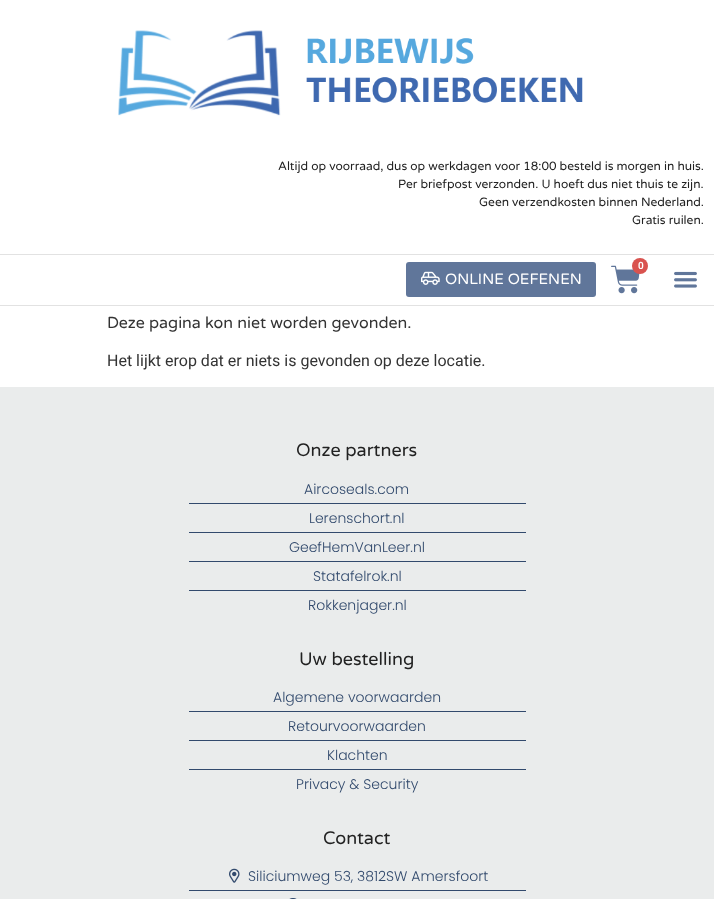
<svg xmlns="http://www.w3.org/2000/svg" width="714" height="899">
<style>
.a{font:12px Varela Round;fill:#222}
.b{font:600 10px Roboto;fill:#fff}
.c{font:15px Varela Round;fill:#fff}
.d{font:16px Varela Round;fill:#333}
.e{font:16px Roboto;fill:#333}
.f{font:18px Varela Round;fill:#222}
.g{font:300 14px Poppins;fill:#324a6d}
</style>
<rect width="100%" height="100%" fill="#fff"/>
<image href="1.png" x="118" y="30" width="465" height="86"/>
<path fill="#e2e2e2" d="M0 254h714v1H0z"/>
<path fill="#e2e2e2" d="M0 305h714v1H0z"/>
<image href="2.png" x="611" y="265" width="29" height="29"/>
<circle fill="#d9534f" cx="640" cy="266" r="8"/>
<rect fill="#60769a" x="406" y="262" width="190" height="35" rx="3"/>
<image href="3.png" x="421" y="271" width="19" height="14"/>
<image href="4.png" x="674" y="271" width="23" height="17"/>
<path fill="#eaecec" d="M0 387h714v512H0z"/>
<path fill="#324a6d" d="M189 503h337v1H189z"/>
<path fill="#324a6d" d="M189 532h337v1H189z"/>
<path fill="#324a6d" d="M189 561h337v1H189z"/>
<path fill="#324a6d" d="M189 590h337v1H189z"/>
<path fill="#324a6d" d="M189 711h337v1H189z"/>
<path fill="#324a6d" d="M189 740h337v1H189z"/>
<path fill="#324a6d" d="M189 769h337v1H189z"/>
<image href="5.png" x="229" y="868" width="11" height="15"/>
<path fill="#324a6d" d="M189 890h337v1H189z"/>
<image href="6.png" x="289" y="898" width="8" height="1"/>
<text class="a" x="278" y="170">Altijd op voorraad, dus op werkdagen voor 18:00 besteld is morgen in huis.</text>
<text class="a" x="398" y="188">Per briefpost verzonden. U hoeft dus niet thuis te zijn.</text>
<text class="a" x="479" y="206">Geen verzendkosten binnen Nederland.</text>
<text class="a" x="632" y="224">Gratis ruilen.</text>
<text class="b" x="638" y="269">0</text>
<text class="c" x="445" y="284">ONLINE OEFENEN</text>
<text class="d" x="107" y="328">Deze pagina kon niet worden gevonden.</text>
<text class="e" x="107" y="366">Het lijkt erop dat er niets is gevonden op deze locatie.</text>
<text class="f" x="296" y="456">Onze partners</text>
<text class="g" x="304" y="494">Aircoseals.com</text>
<text class="g" x="309" y="523">Lerenschort.nl</text>
<text class="g" x="289" y="552">GeefHemVanLeer.nl</text>
<text class="g" x="313" y="581">Statafelrok.nl</text>
<text class="g" x="308" y="610">Rokkenjager.nl</text>
<text class="f" x="299" y="665">Uw bestelling</text>
<text class="g" x="273" y="702">Algemene voorwaarden</text>
<text class="g" x="288" y="731">Retourvoorwaarden</text>
<text class="g" x="327" y="760">Klachten</text>
<text class="g" x="296" y="789">Privacy &amp; Security</text>
<text class="f" x="323" y="844">Contact</text>
<text class="g" x="248" y="881">Siliciumweg 53, 3812SW Amersfoort</text>
</svg>
